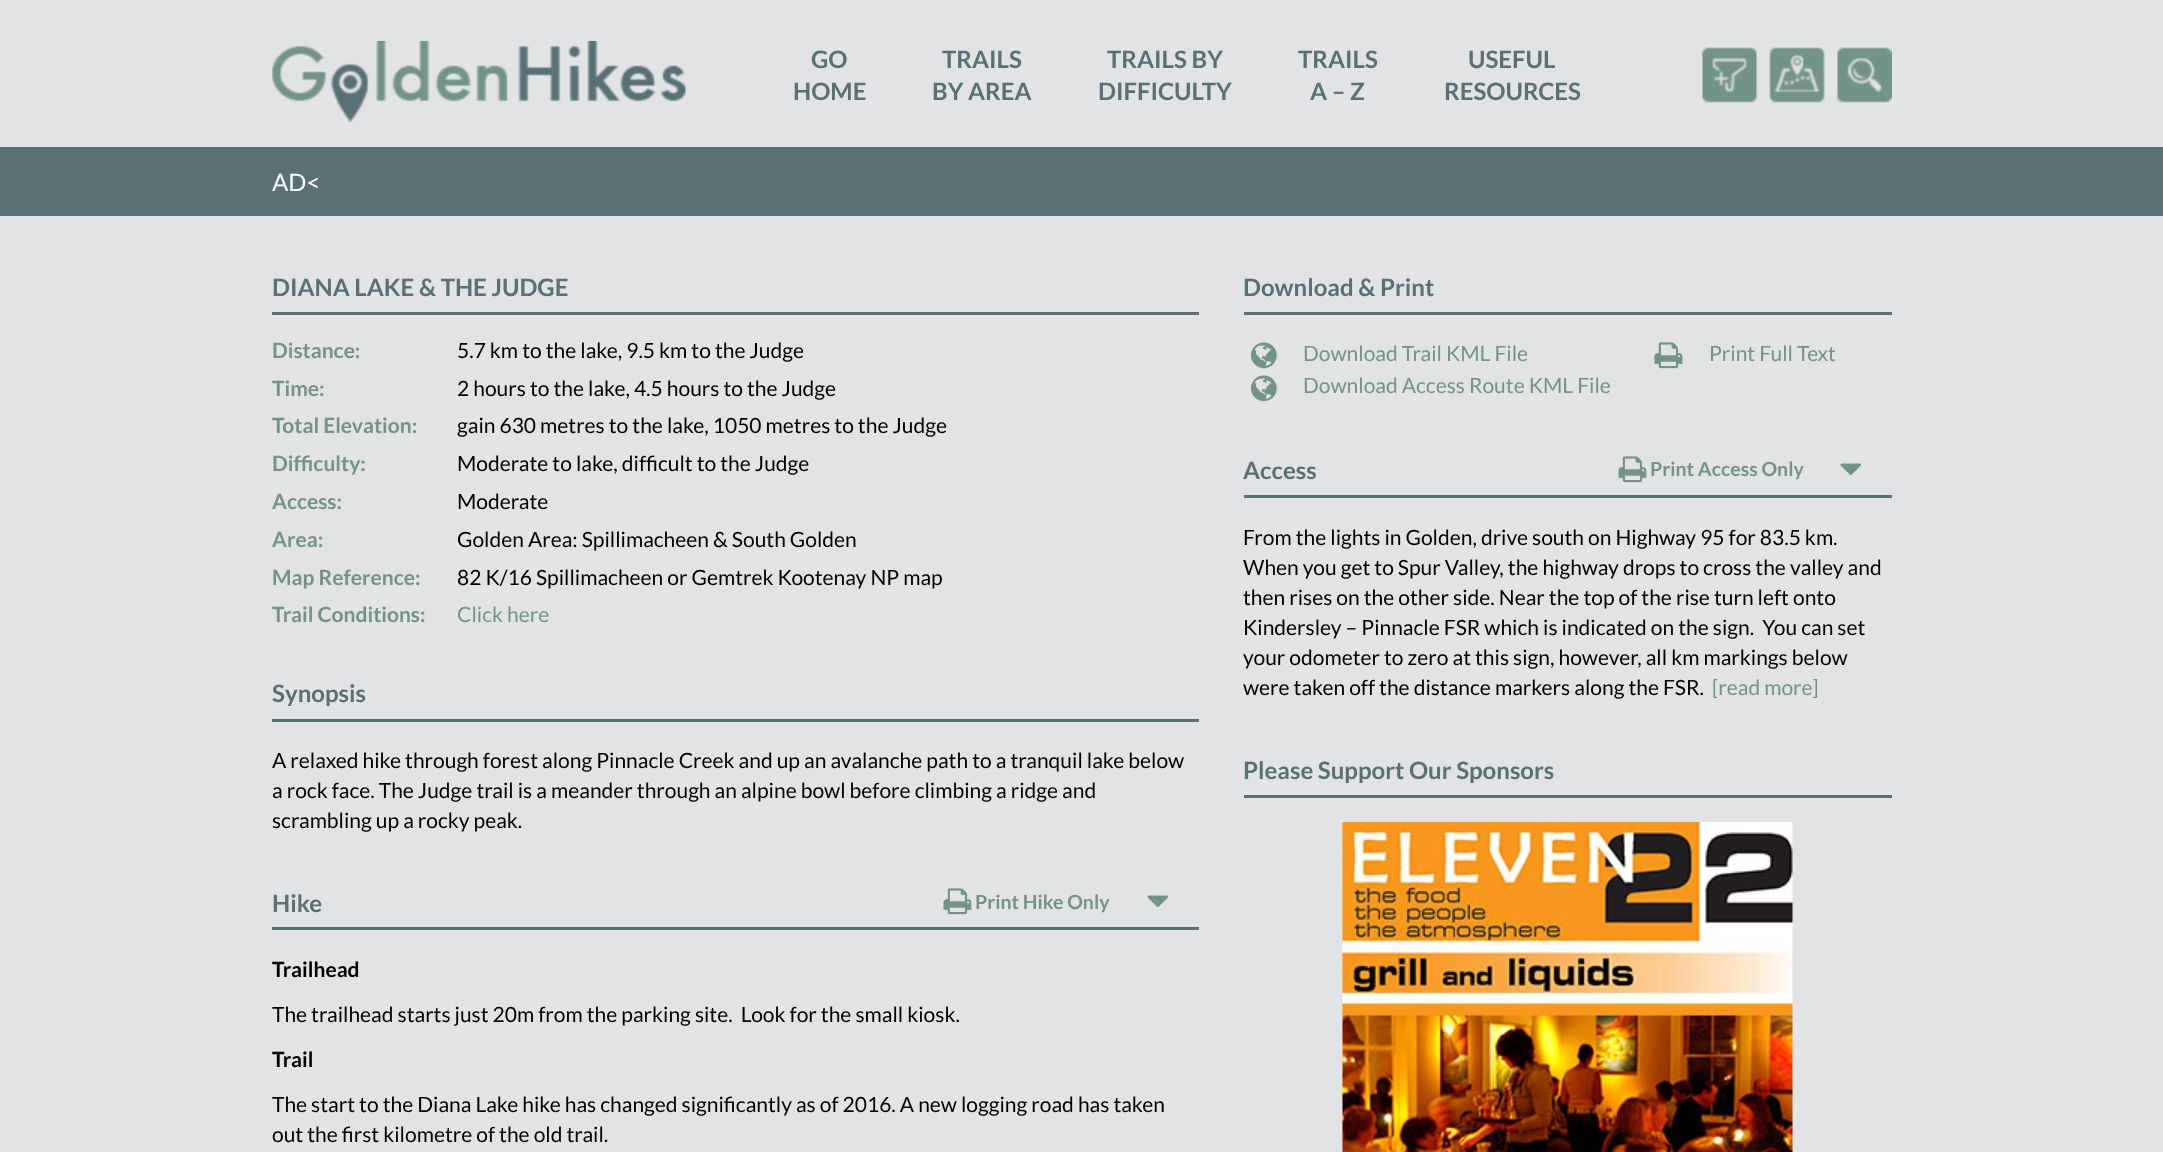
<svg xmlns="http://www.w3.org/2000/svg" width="2163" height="1152">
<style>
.a{font:bold 24px Lato;fill:#587175}
.b{font:24px Lato;fill:#fff}
.c{font:bold 21px Lato;fill:#72938a}
.d{font:21px Lato;fill:#000}
.e{font:21px Lato;fill:#72938a}
.f{font:bold 19.5px Lato;fill:#72938a}
.g{font:bold 21px Lato;fill:#000}
</style>
<rect width="100%" height="100%" fill="#e2e3e5"/>
<image href="1.png" x="272" y="41" width="414" height="81"/>
<image href="2.png" x="1702" y="47" width="55" height="56"/>
<image href="3.png" x="1769" y="47" width="56" height="56"/>
<image href="4.png" x="1837" y="47" width="55" height="56"/>
<path fill="#587175" d="M0 147h2163v69H0z"/>
<path fill="#587175" d="M272 312h927v3H272z"/>
<path fill="#587175" d="M272 719h927v3H272z"/>
<path fill="#587175" d="M272 927h927v3H272z"/>
<image href="5.png" x="943" y="888" width="29" height="27"/>
<image href="6.png" x="1147" y="895" width="21" height="12"/>
<path fill="#587175" d="M1244 312h648v3H1244z"/>
<image href="7.png" x="1251" y="342" width="26" height="27"/>
<image href="5.png" x="1654" y="342" width="29" height="27"/>
<image href="7.png" x="1251" y="375" width="26" height="27"/>
<path fill="#587175" d="M1244 495h648v3H1244z"/>
<image href="5.png" x="1618" y="456" width="29" height="27"/>
<image href="6.png" x="1840" y="463" width="21" height="12"/>
<path fill="#587175" d="M1244 795h648v3H1244z"/>
<image href="8.png" x="1342" y="822" width="451" height="330"/>
<text class="a" x="811" y="68">GO</text>
<text class="a" x="793" y="100">HOME</text>
<text class="a" x="942" y="68">TRAILS</text>
<text class="a" x="932" y="100">BY AREA</text>
<text class="a" x="1107" y="68">TRAILS BY</text>
<text class="a" x="1098" y="100">DIFFICULTY</text>
<text class="a" x="1298" y="68">TRAILS</text>
<text class="a" x="1310" y="100">A – Z</text>
<text class="a" x="1468" y="68">USEFUL</text>
<text class="a" x="1444" y="100">RESOURCES</text>
<text class="b" x="272" y="191">AD&lt;</text>
<text class="a" x="272" y="296">DIANA LAKE &amp; THE JUDGE</text>
<text class="c" x="272" y="358">Distance:</text>
<text class="d" x="457" y="358">5.7 km to the lake, 9.5 km to the Judge</text>
<text class="c" x="272" y="396">Time:</text>
<text class="d" x="457" y="396">2 hours to the lake, 4.5 hours to the Judge</text>
<text class="c" x="272" y="433">Total Elevation:</text>
<text class="d" x="457" y="433">gain 630 metres to the lake, 1050 metres to the Judge</text>
<text class="c" x="272" y="471">Difficulty:</text>
<text class="d" x="457" y="471">Moderate to lake, difficult to the Judge</text>
<text class="c" x="272" y="509">Access:</text>
<text class="d" x="457" y="509">Moderate</text>
<text class="c" x="272" y="547">Area:</text>
<text class="d" x="457" y="547">Golden Area: Spillimacheen &amp; South Golden</text>
<text class="c" x="272" y="585">Map Reference:</text>
<text class="d" x="457" y="585">82 K/16 Spillimacheen or Gemtrek Kootenay NP map</text>
<text class="c" x="272" y="622">Trail Conditions:</text>
<text class="e" x="457" y="622">Click here</text>
<text class="a" x="272" y="702">Synopsis</text>
<text class="d" x="272" y="768">A relaxed hike through forest along Pinnacle Creek and up an avalanche path to a tranquil lake below</text>
<text class="d" x="272" y="798">a rock face. The Judge trail is a meander through an alpine bowl before climbing a ridge and</text>
<text class="d" x="272" y="828">scrambling up a rocky peak.</text>
<text class="a" x="272" y="912">Hike</text>
<text class="f" x="975" y="909">Print Hike Only</text>
<text class="g" x="272" y="977">Trailhead</text>
<text class="d" xml:space="preserve" x="272" y="1022">The trailhead starts just 20m from the parking site.  Look for the small kiosk.</text>
<text class="g" x="272" y="1067">Trail</text>
<text class="d" x="272" y="1112">The start to the Diana Lake hike has changed significantly as of 2016. A new logging road has taken</text>
<text class="d" x="272" y="1142">out the first kilometre of the old trail.</text>
<text class="a" x="1243" y="296">Download &amp; Print</text>
<text class="e" x="1303" y="361">Download Trail KML File</text>
<text class="e" x="1709" y="361">Print Full Text</text>
<text class="e" x="1303" y="393">Download Access Route KML File</text>
<text class="a" x="1243" y="479">Access</text>
<text class="f" x="1650" y="476">Print Access Only</text>
<text class="d" x="1243" y="545">From the lights in Golden, drive south on Highway 95 for 83.5 km.</text>
<text class="d" x="1243" y="575">When you get to Spur Valley, the highway drops to cross the valley and</text>
<text class="d" x="1243" y="605">then rises on the other side. Near the top of the rise turn left onto</text>
<text class="d" xml:space="preserve" x="1243" y="635">Kindersley – Pinnacle FSR which is indicated on the sign.  You can set</text>
<text class="d" x="1243" y="665">your odometer to zero at this sign, however, all km markings below</text>
<text class="d" x="1243" y="695">were taken off the distance markers along the FSR.</text>
<text class="e" x="1712" y="695">[read more]</text>
<text class="a" x="1243" y="779">Please Support Our Sponsors</text>
</svg>
